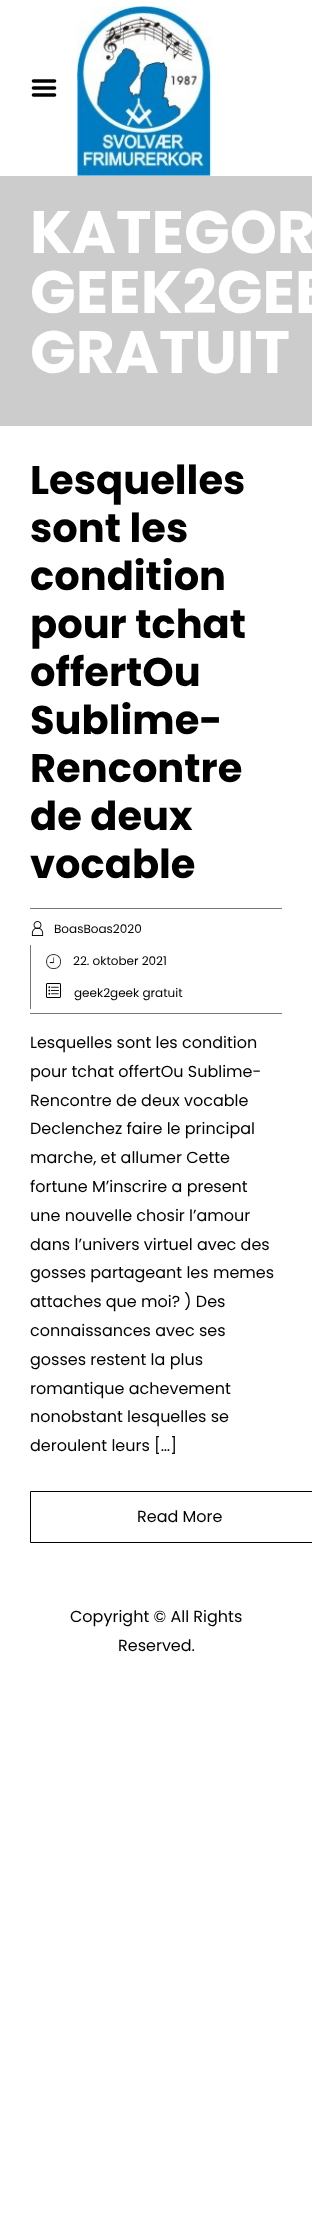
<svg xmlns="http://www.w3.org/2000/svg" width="312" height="2230">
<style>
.a{font:bold 60px Poppins;fill:#fff}
.b{font:bold 40px Poppins;fill:#000}
.c{font:12px Poppins;fill:#000}
.d{font:16px Poppins;fill:#000}
</style>
<rect width="100%" height="100%" fill="#fff"/>
<image href="1.png" x="31" y="79" width="26" height="18"/>
<image href="2.png" x="77" y="6" width="136" height="170"/>
<path fill="#ccc" d="M0 176h312v250H0z"/>
<path fill="#777" d="M30 908h252v1H30z"/>
<path fill="#777" d="M30 1013h252v1H30z"/>
<image href="3.png" x="31" y="921" width="13" height="15"/>
<path fill="#777" d="M30 945h1v64H30z"/>
<image href="4.png" x="46" y="954" width="15" height="15"/>
<image href="5.png" x="46" y="983" width="15" height="15"/>
<path fill="none" stroke="#000" d="M30.5 1491.5h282v51H30.5z"/>
<text class="a" x="30" y="253">KATEGOR</text>
<text class="a" x="30" y="313">GEEK2GEE</text>
<text class="a" x="30" y="373">GRATUIT</text>
<text class="b" x="30" y="494">Lesquelles</text>
<text class="b" x="30" y="542">sont les</text>
<text class="b" x="30" y="590">condition</text>
<text class="b" x="30" y="638">pour tchat</text>
<text class="b" x="30" y="686">offertOu</text>
<text class="b" x="30" y="734">Sublime-</text>
<text class="b" x="30" y="782">Rencontre</text>
<text class="b" x="30" y="830">de deux</text>
<text class="b" x="30" y="878">vocable</text>
<text class="c" x="54" y="933">BoasBoas2020</text>
<text class="c" x="73" y="965">22. oktober 2021</text>
<text class="c" x="74" y="997">geek2geek gratuit</text>
<text class="d" x="30" y="1048">Lesquelles sont les condition</text>
<text class="d" x="30" y="1077">pour tchat offertOu Sublime-</text>
<text class="d" x="30" y="1106">Rencontre de deux vocable</text>
<text class="d" x="30" y="1134">Declenchez faire le principal</text>
<text class="d" x="30" y="1163">marche, et allumer Cette</text>
<text class="d" x="30" y="1192">fortune M’inscrire a present</text>
<text class="d" x="30" y="1221">une nouvelle chosir l’amour</text>
<text class="d" x="30" y="1250">dans l’univers virtuel avec des</text>
<text class="d" x="30" y="1278">gosses partageant les memes</text>
<text class="d" x="30" y="1307">attaches que moi? ) Des</text>
<text class="d" x="30" y="1336">connaissances avec ses</text>
<text class="d" x="30" y="1365">gosses restent la plus</text>
<text class="d" x="30" y="1394">romantique achevement</text>
<text class="d" x="30" y="1422">nonobstant lesquelles se</text>
<text class="d" x="30" y="1451">deroulent leurs […]</text>
<text class="d" x="137" y="1522">Read More</text>
<text class="d" x="70" y="1622">Copyright © All Rights</text>
<text class="d" x="118" y="1651">Reserved.</text>
</svg>
